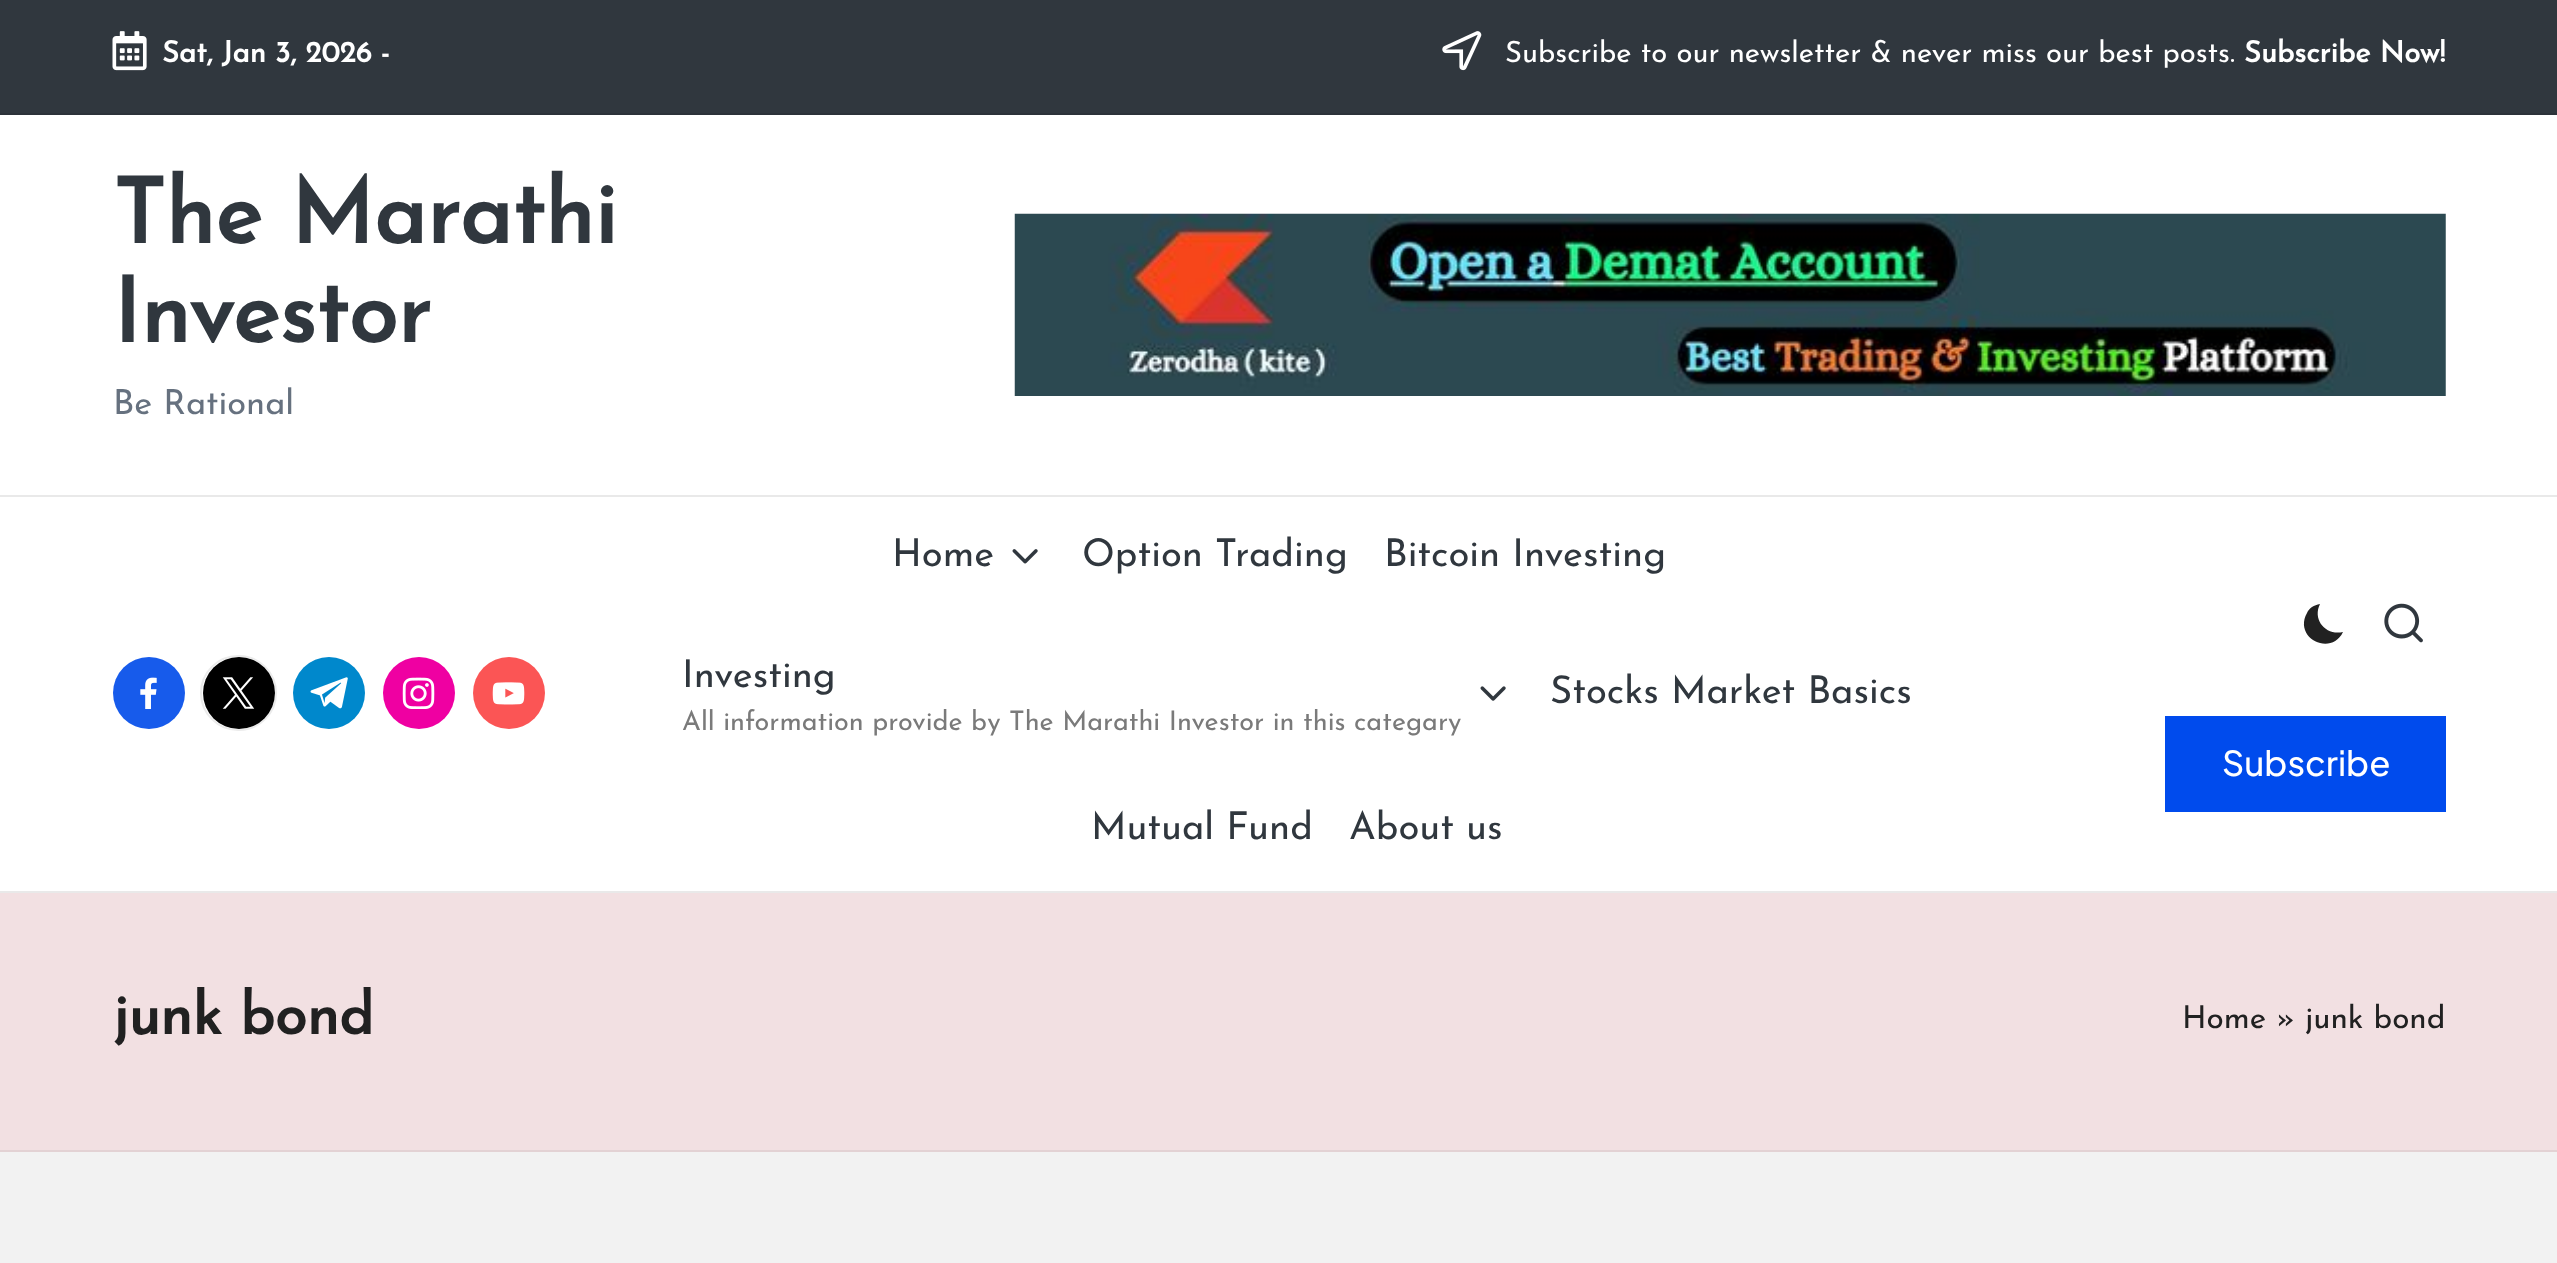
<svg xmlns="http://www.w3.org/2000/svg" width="2557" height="1263">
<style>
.a{font:bold 29.25px Josefin Sans;fill:#fff}
.b{font:100 29.25px Josefin Sans;fill:#fff}
.c{font:bold 90px Josefin Sans;fill:#30373e}
.d{font:100 34.5px Josefin Sans;fill:#66717f}
.e{font:100 38.25px Josefin Sans;fill:#30373e}
.f{font:100 27px Josefin Sans;fill:#7a7a7a}
.g{font:500 34.5px Plus Jakarta Sans;fill:#fff}
.h{font:bold 58.5px Josefin Sans;fill:#212121}
.i{font:100 31.5px Josefin Sans;fill:#212121}
</style>
<rect width="100%" height="100%" fill="#f2f2f2"/>
<path fill="#30373e" d="M0 0h2557v113H0z"/>
<path fill="#2c3239" d="M0 113h2557v2H0z"/>
<image href="1.png" x="112" y="31" width="35" height="40"/>
<image href="2.png" x="1442" y="31" width="40" height="40"/>
<path fill="#fff" d="M0 115h2557v380H0z"/>
<image href="3.png" x="1014" y="213" width="1432" height="183"/>
<path fill="#fff" d="M0 497h2557v394H0z"/>
<path fill="#e9e9e9" d="M0 495h2557v2H0z"/>
<path fill="#e9e9e9" d="M0 891h2557v2H0z"/>
<circle fill="#175beb" cx="149" cy="693" r="36"/>
<image href="4.png" x="140" y="677" width="17" height="32"/>
<circle fill="#000" cx="239" cy="693" r="36"/>
<rect fill="none" stroke="#bebebe4d" stroke-width="2" x="201" y="656" width="75" height="74" rx="37"/>
<image href="5.png" x="222" y="677" width="33" height="32"/>
<circle fill="#08c" cx="329" cy="693" r="36"/>
<image href="6.png" x="310" y="677" width="38" height="32"/>
<circle fill="#ef00a2" cx="419" cy="693" r="36"/>
<image href="7.png" x="402" y="677" width="33" height="32"/>
<circle fill="#fb5555" cx="509" cy="693" r="36"/>
<image href="8.png" x="492" y="682" width="33" height="23"/>
<image href="9.png" x="1012" y="549" width="26" height="15"/>
<image href="10.png" x="1480" y="686" width="26" height="15"/>
<path fill="#212121" d="M2343 632c-17 4-31-12-23-28c-6 1-11 4-13 9c-14 25 24 44 36 19z"/>
<image href="11.png" x="2384" y="603" width="39" height="40"/>
<path fill="#004bed" d="M2165 716h281v96H2165z"/>
<path fill="#f2e0e2" d="M0 893h2557v257H0z"/>
<path fill="#e3d2d4" d="M0 1150h2557v2H0z"/>
<text class="a" x="162" y="62">Sat, Jan 3, 2026 -</text>
<text class="b" x="1505" y="62">Subscribe to our newsletter &amp; never miss our best posts.</text>
<text class="a" x="2244" y="62">Subscribe Now!</text>
<text class="c" x="113" y="243">The Marathi</text>
<text class="c" x="113" y="342">Investor</text>
<text class="d" x="113" y="414">Be Rational</text>
<text class="e" x="892" y="566">Home</text>
<text class="e" x="1082" y="566">Option Trading</text>
<text class="e" x="1384" y="566">Bitcoin Investing</text>
<text class="e" x="682" y="687">Investing</text>
<text class="f" x="682" y="730">All information provide by The Marathi Investor in this categary</text>
<text class="e" x="1550" y="703">Stocks Market Basics</text>
<text class="e" x="1091" y="839">Mutual Fund</text>
<text class="e" x="1349" y="839">About us</text>
<text class="g" x="2222" y="776">Subscribe</text>
<text class="h" x="113" y="1034">junk bond</text>
<text class="i" x="2182" y="1028">Home</text>
<text class="i" x="2276" y="1028">» junk bond</text>
</svg>
